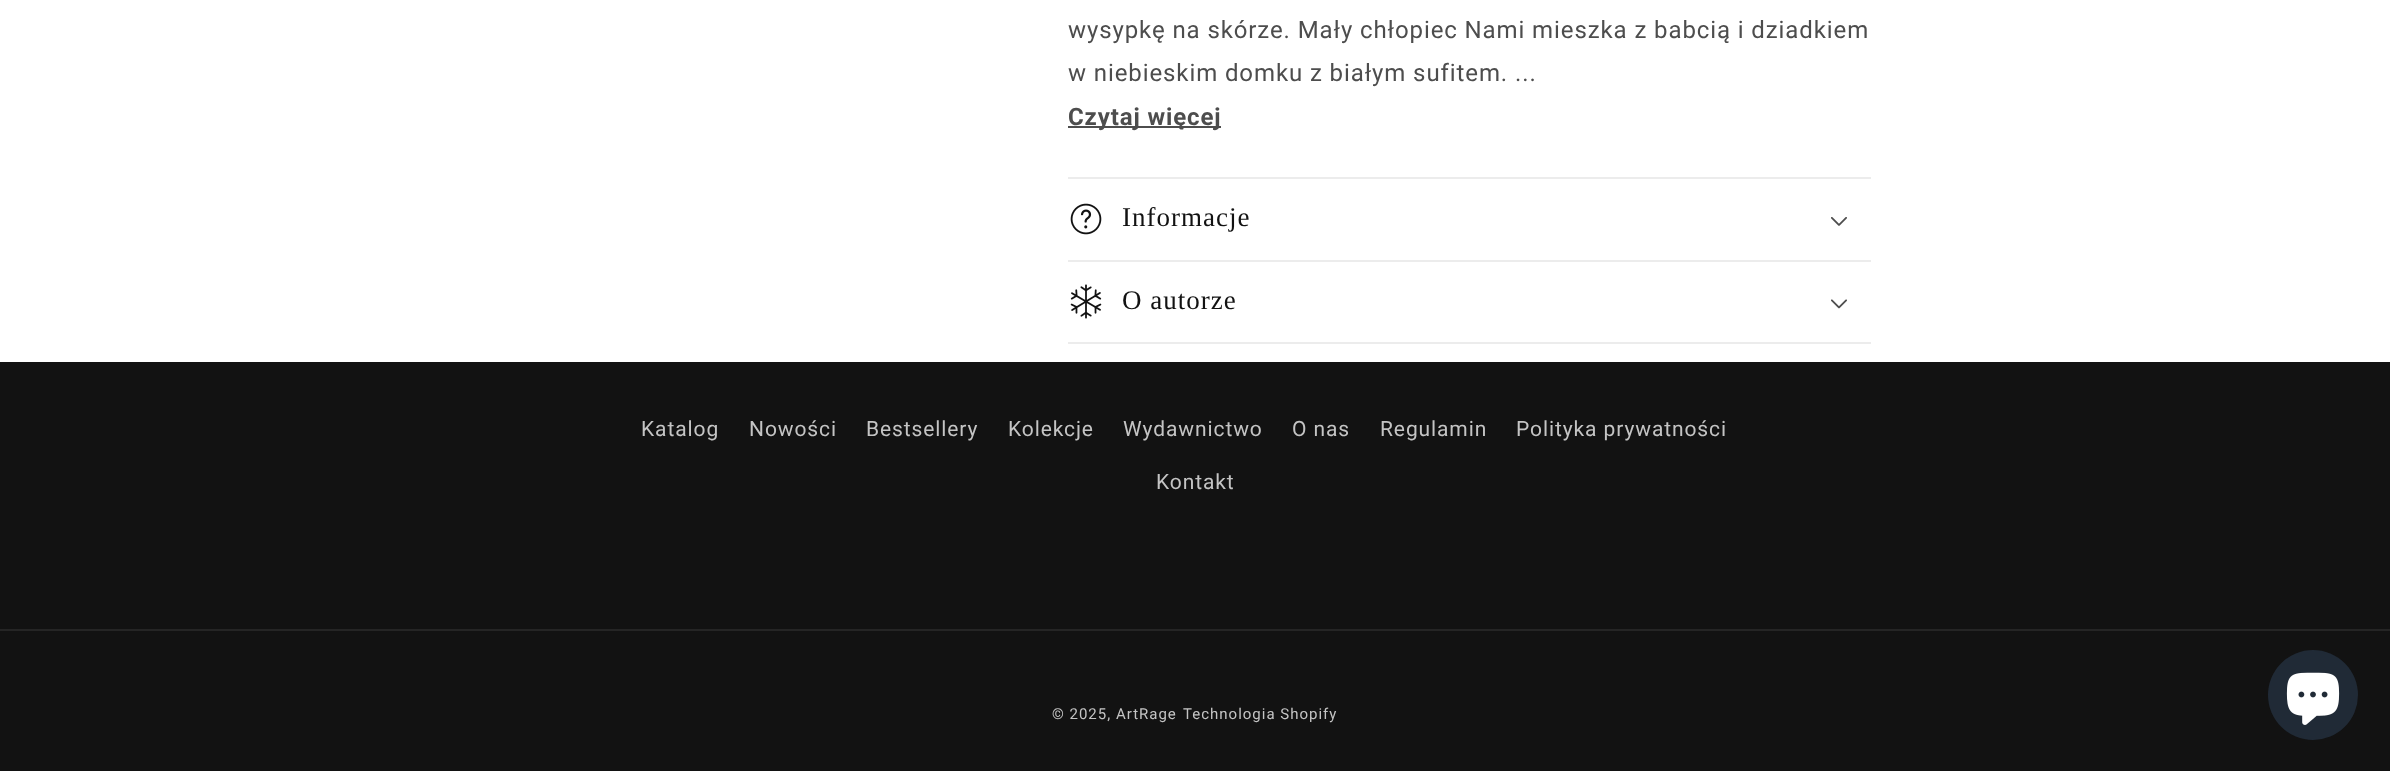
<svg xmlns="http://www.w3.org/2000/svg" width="2390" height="771">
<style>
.a{font:24px Roboto;letter-spacing:0.9px;fill:#4d4d4d}
.b{font:bold 24px Roboto;letter-spacing:0.9px;fill:#4d4d4d}
.c{font:27px Liberation Serif;letter-spacing:1px;fill:#121212}
.d{font:21px Roboto;letter-spacing:0.9px;fill:#c4c4c4}
.e{font:15px Roboto;letter-spacing:1px;fill:#c4c4c4}
</style>
<rect width="100%" height="100%" fill="#fff"/>
<path fill="#4d4d4d" d="M1068 126h153v2H1068z"/>
<path fill="#ececec" d="M1068 177h803v2H1068z"/>
<path fill="#ececec" d="M1068 260h803v2H1068z"/>
<image href="1.png" x="1070" y="203" width="32" height="32"/>
<image href="2.png" x="1831" y="217" width="16" height="9"/>
<path fill="#ececec" d="M1068 342h803v2H1068z"/>
<image href="3.png" x="1070" y="284" width="32" height="35"/>
<image href="4.png" x="1831" y="299" width="16" height="10"/>
<path fill="#121212" d="M0 362h2390v409H0z"/>
<path fill="#252525" d="M0 629h2390v2H0z"/>
<circle fill="#202a36" cx="2313" cy="695" r="45"/>
<image href="5.png" x="2286" y="672" width="54" height="53"/>
<text class="a" x="1068" y="38">wysypkę na skórze. Mały chłopiec Nami mieszka z babcią i dziadkiem</text>
<text class="a" x="1068" y="81">w niebieskim domku z białym sufitem. ...</text>
<text class="b" x="1068" y="125">Czytaj więcej</text>
<text class="c" x="1122" y="226">Informacje</text>
<text class="c" x="1122" y="309">O autorze</text>
<text class="d" x="641" y="436">Katalog</text>
<text class="d" x="749" y="436">Nowości</text>
<text class="d" x="866" y="436">Bestsellery</text>
<text class="d" x="1008" y="436">Kolekcje</text>
<text class="d" x="1123" y="436">Wydawnictwo</text>
<text class="d" x="1292" y="436">O nas</text>
<text class="d" x="1380" y="436">Regulamin</text>
<text class="d" x="1516" y="436">Polityka prywatności</text>
<text class="d" x="1156" y="489">Kontakt</text>
<text class="e" x="1052" y="719">© 2025, ArtRage</text>
<text class="e" x="1183" y="719">Technologia Shopify</text>
</svg>
